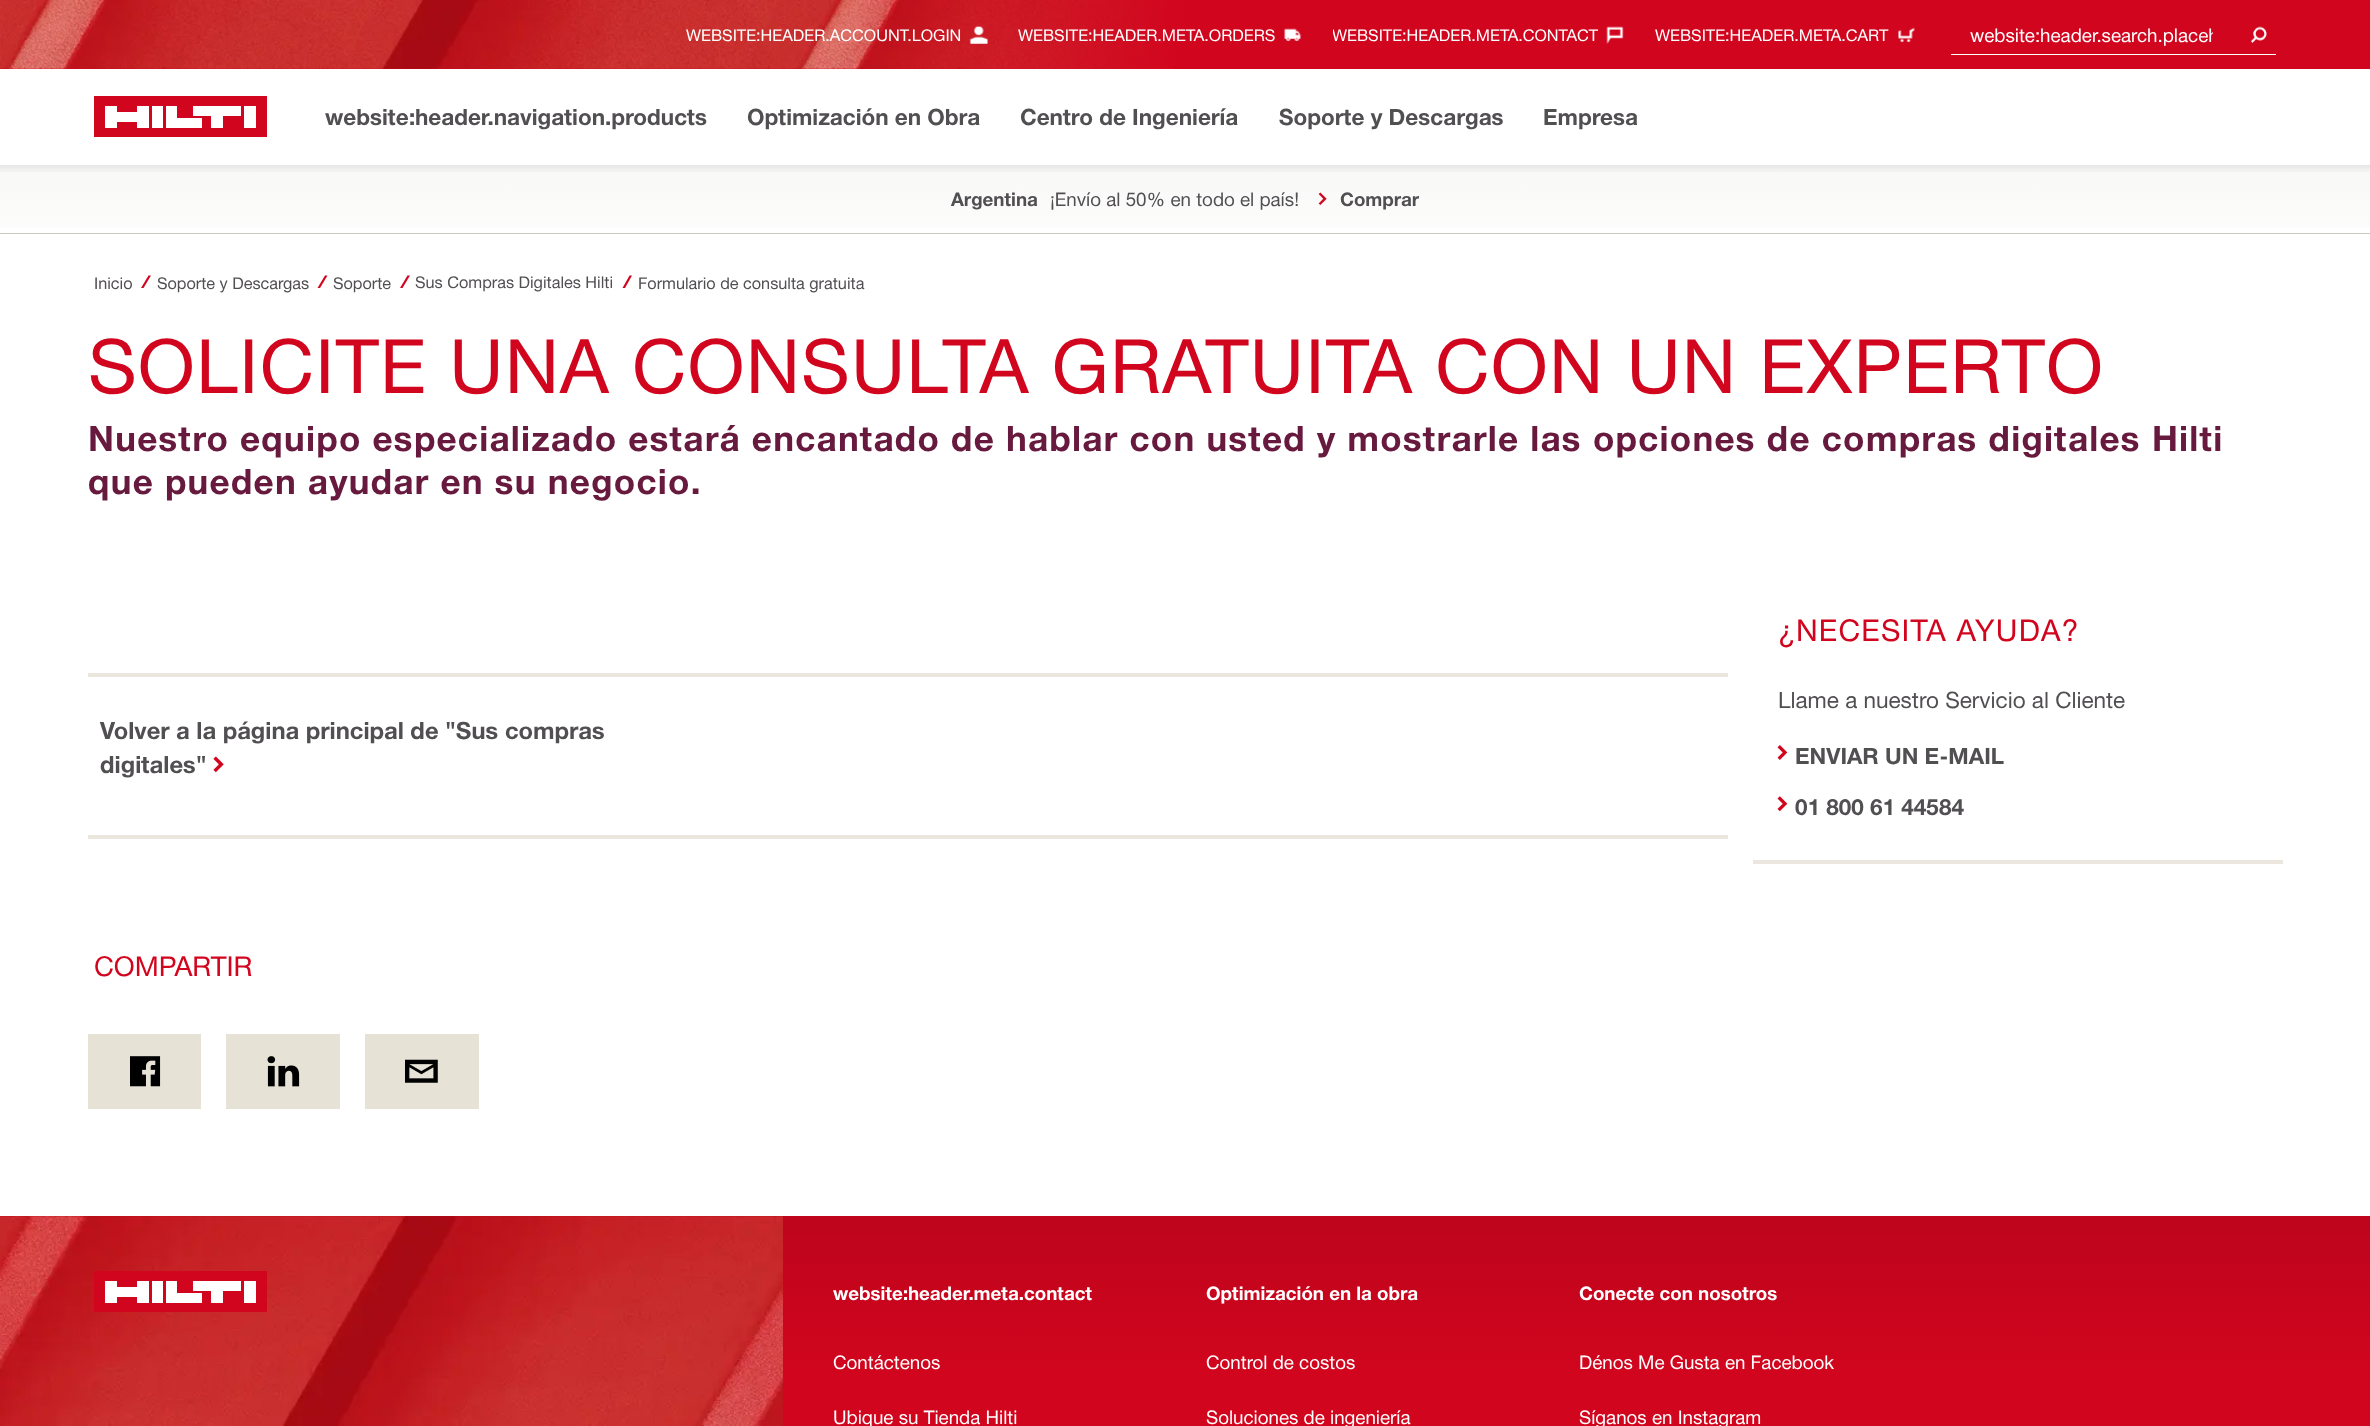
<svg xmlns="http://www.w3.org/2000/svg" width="2370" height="1426">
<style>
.a{font:16.25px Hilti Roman;fill:#fff}
.b{font:18.75px Hilti Roman;fill:#fff}
.c{font:bold 22.5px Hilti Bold;fill:#524f53}
.d{font:bold 18.75px Hilti Bold;fill:#524f53}
.e{font:18.75px Hilti Roman;fill:#524f53}
.f{font:16.25px Hilti Roman;fill:#524f53}
.g{font:75px Hilti Roman;letter-spacing:1.25px;fill:#d2051e}
.h{font:bold 35px Hilti Bold;letter-spacing:1.25px;fill:#671a3d}
.i{font:bold 23.75px Hilti Bold;fill:#524f53}
.j{font:30px Hilti Roman;letter-spacing:1.25px;fill:#d2051e}
.k{font:22.5px Hilti Roman;fill:#524f53}
.l{font:27.5px Hilti Roman;fill:#d2051e}
.m{font:bold 18.75px Hilti Bold;fill:#fff}
</style>
<defs>
<linearGradient id="g1" gradientUnits="userSpaceOnUse" x1="1185" y1="165" x2="1185" y2="275"><stop offset="0" stop-color="#7d7565" stop-opacity="0.05"/><stop offset="1" stop-color="#7d7565" stop-opacity="0"/></linearGradient>
<clipPath id="clip1"><path d="M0 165h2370v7H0z"/></clipPath>
<linearGradient id="g2" gradientUnits="userSpaceOnUse" x1="1185" y1="1216" x2="1185" y2="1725"><stop offset="0" stop-color="#bd051c"/><stop offset="0.32" stop-color="#d2051e"/></linearGradient>
<clipPath id="clip2"><path d="M1333 25h265v19H1333z"/></clipPath>
<clipPath id="clip3"><path d="M1970 24h243v22H1970z"/></clipPath>
<clipPath id="clip4"><path d="M1340 185h79v28H1340z"/></clipPath>
</defs>
<rect width="100%" height="100%" fill="#fff"/>
<image href="7.png" x="1318" y="192" width="9" height="13"/>
<path fill="url(#g1)" d="M0 165h2370v63H0z"/>
<g clip-path="url(#clip1)">
<path fill="#00000026" filter="blur(6px)" d="M-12 -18h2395v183H-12z"/>
</g>
<path fill="#d2051e" d="M0 0h2370v69H0z"/>
<image href="1.png" x="0" y="0" width="1185" height="69"/>
<image href="2.png" x="969" y="25" width="19" height="19"/>
<image href="3.png" x="1284" y="28" width="17" height="13"/>
<image href="4.png" x="1606" y="26" width="18" height="18"/>
<image href="5.png" x="1898" y="27" width="17" height="16"/>
<path fill="#fff" d="M1951 54h325v1H1951z"/>
<image href="6.png" x="2251" y="26" width="16" height="17"/>
<path fill="#d2051e" d="M94 96h173v41H94z"/>
<path fill="#fff" d="M163 128h-11v-22h11zm93-22h-12v22h12zm-151 22h12v-6h20v6h12v-22h-12v6h-20v-6h-12zm61 0h36v-10h-25v-12h-11zm27-12h18v12h12v-12h18v-10h-48z"/>
<path fill="#cbc8c1" d="M0 233h2370v1H0z"/>
<path fill="#d2051e" d="M148.5 275.5h2.5l-7.5 12.5h-2.5z"/>
<path fill="#d2051e" d="M325 275.5h2.5l-7.5 12.5h-2.5z"/>
<path fill="#d2051e" d="M407.5 275.5h2.5l-7.5 12.5h-2.5z"/>
<path fill="#d2051e" d="M629.5 275.5h2.5l-7 12.5h-2.5z"/>
<path fill="#ebe6de" d="M88 673h1640v4H88z"/>
<path fill="#ebe6de" d="M88 835h1640v4H88z"/>
<image href="8.png" x="213" y="756" width="11" height="17"/>
<path fill="#ebe6de" d="M1753 860h530v4H1753z"/>
<image href="9.png" x="1777" y="745" width="11" height="15"/>
<image href="10.png" x="1777" y="796" width="11" height="16"/>
<path fill="#e7e2d6" d="M88 1034h113v75H88z"/>
<image href="11.png" x="130" y="1056" width="31" height="31"/>
<path fill="#e7e2d6" d="M226 1034h114v75H226z"/>
<image href="12.png" x="267" y="1056" width="33" height="31"/>
<path fill="#e7e2d6" d="M365 1034h114v75H365z"/>
<image href="13.png" x="405" y="1059" width="33" height="24"/>
<path fill="url(#g2)" d="M0 1216h2370v210H0z"/>
<image href="14.png" x="0" y="1216" width="783" height="210"/>
<path fill="#d2051e" d="M94 1271h173v41H94z"/>
<path fill="#fff" d="M163 1303h-11v-22h11zm93-22h-12v22h12zm-151 22h12v-6h20v6h12v-22h-12v6h-20v-6h-12zm61 0h36v-10h-25v-12h-11zm27-12h18v12h12v-12h18v-10h-48z"/>
<text class="a" x="686" y="41">WEBSITE:HEADER.ACCOUNT.LOGIN</text>
<text class="a" x="1018" y="41">WEBSITE:HEADER.META.ORDERS</text>
<g clip-path="url(#clip2)">
<text class="a" x="1332" y="41">WEBSITE:HEADER.META.CONTACT</text>
</g>
<text class="a" x="1655" y="41">WEBSITE:HEADER.META.CART</text>
<g clip-path="url(#clip3)">
<text class="b" x="1970" y="42">website:header.search.placeh</text>
</g>
<text class="c" x="325" y="125">website:header.navigation.products</text>
<text class="c" x="747" y="125">Optimización en Obra</text>
<text class="c" x="1020" y="125">Centro de Ingeniería</text>
<text class="c" x="1279" y="125">Soporte y Descargas</text>
<text class="c" x="1543" y="125">Empresa</text>
<text class="d" x="951" y="206">Argentina</text>
<text class="e" x="1050" y="206">¡Envío al 50% en todo el país!</text>
<g clip-path="url(#clip4)">
<text class="d" x="1340" y="206">Comprar</text>
</g>
<text class="f" x="94" y="289">Inicio</text>
<text class="f" x="157" y="289">Soporte y Descargas</text>
<text class="f" x="333" y="289">Soporte</text>
<text class="f" x="415" y="288">Sus Compras Digitales Hilti</text>
<text class="f" x="638" y="289">Formulario de consulta gratuita</text>
<text class="g" x="88" y="393">SOLICITE UNA CONSULTA GRATUITA CON UN EXPERTO</text>
<text class="h" x="88" y="451">Nuestro equipo especializado estará encantado de hablar con usted y mostrarle las opciones de compras digitales Hilti</text>
<text class="h" x="88" y="494">que pueden ayudar en su negocio.</text>
<text class="i" x="100" y="739">Volver a la página principal de "Sus compras</text>
<text class="i" x="100" y="773">digitales"</text>
<text class="j" x="1778" y="641">¿NECESITA AYUDA?</text>
<text class="k" x="1778" y="708">Llame a nuestro Servicio al Cliente</text>
<text class="c" x="1795" y="764">ENVIAR UN E-MAIL</text>
<text class="c" x="1795" y="815">01 800 61 44584</text>
<text class="l" x="94" y="976">COMPARTIR</text>
<text class="m" x="833" y="1300">website:header.meta.contact</text>
<text class="b" x="833" y="1369">Contáctenos</text>
<text class="b" x="833" y="1424">Ubique su Tienda Hilti</text>
<text class="m" x="1206" y="1300">Optimización en la obra</text>
<text class="b" x="1206" y="1369">Control de costos</text>
<text class="b" x="1206" y="1424">Soluciones de ingeniería</text>
<text class="m" x="1579" y="1300">Conecte con nosotros</text>
<text class="b" x="1579" y="1369">Dénos Me Gusta en Facebook</text>
<text class="b" x="1579" y="1424">Síganos en Instagram</text>
</svg>
